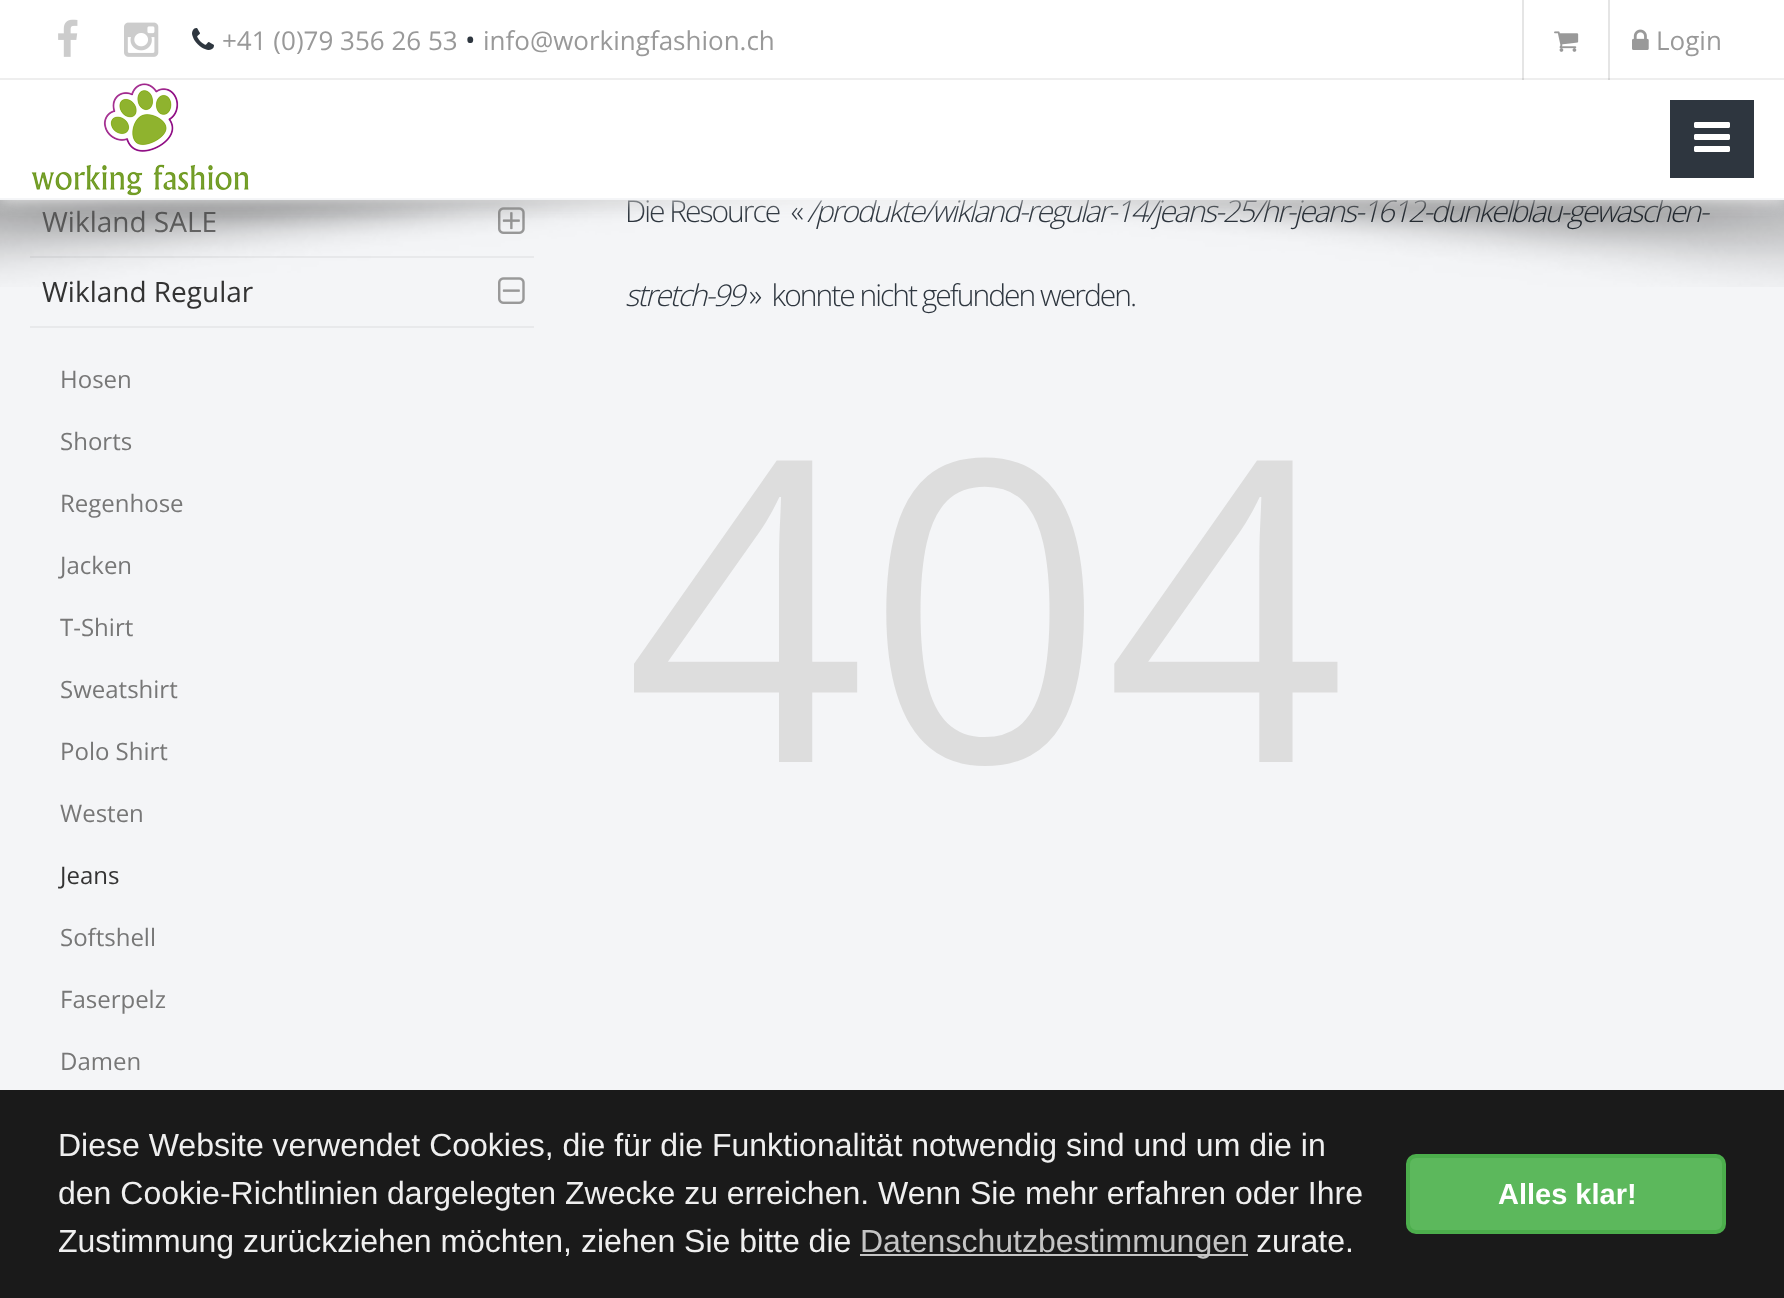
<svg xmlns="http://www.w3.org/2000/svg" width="1784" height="1298">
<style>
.a{font:28px Open Sans;fill:#777}
.b{font:28px Open Sans;fill:#333}
.c{font:24px Open Sans;fill:#777}
.d{font:24px Open Sans;fill:#333}
.e{font:300 30px Open Sans;letter-spacing:-2px;fill:#2e363f}
.f{font:italic 300 30px Open Sans;letter-spacing:-2px;fill:#2e363f}
.g{font:420px Open Sans;fill:#ddd}
.h{font:26px Open Sans;fill:#999}
.i{font:28px Open Sans;fill:#2e363f}
.j{font:32px Liberation Sans;fill:#efefef}
.k{font:32px Liberation Sans;fill:#c4c4c4}
.l{font:bold 29px Liberation Sans;fill:#fff}
</style>
<rect width="100%" height="100%" fill="#f4f5f7"/>
<path fill="#e8e9eb" d="M30 256h504v2H30z"/>
<image href="8.png" x="498" y="207" width="27" height="27"/>
<path fill="#e8e9eb" d="M30 326h504v2H30z"/>
<image href="9.png" x="498" y="277" width="27" height="27"/>
<path fill="#1a1a1a" d="M0 1090h1784v208H0z"/>
<path fill="#c4c4c4" d="M860 1254h388v2H860z"/>
<rect fill="#5cb85c" stroke="#4cae4c" stroke-width="4" x="1408" y="1156" width="316" height="76" rx="8"/>
<text class="a" x="42" y="232">Wikland SALE</text>
<text class="b" x="42" y="302">Wikland Regular</text>
<text class="c" x="60" y="388">Hosen</text>
<text class="c" x="60" y="450">Shorts</text>
<text class="c" x="60" y="512">Regenhose</text>
<text class="c" x="60" y="574">Jacken</text>
<text class="c" x="60" y="636">T-Shirt</text>
<text class="c" x="60" y="698">Sweatshirt</text>
<text class="c" x="60" y="760">Polo Shirt</text>
<text class="c" x="60" y="822">Westen</text>
<text class="d" x="60" y="884">Jeans</text>
<text class="c" x="60" y="946">Softshell</text>
<text class="c" x="60" y="1008">Faserpelz</text>
<text class="c" x="60" y="1070">Damen</text>
<text class="e" xml:space="preserve" x="625" y="222">Die Resource  «</text>
<text class="f" x="807" y="222">/produkte/wikland-regular-14/jeans-25/hr-jeans-1612-dunkelblau-gewaschen-</text>
<text class="f" x="625" y="306">stretch-99</text>
<text class="e" xml:space="preserve" x="749" y="306">»  konnte nicht gefunden werden.</text>
<text class="g" x="625" y="762">404</text>
<image href="10.png" x="0" y="200" width="1784" height="87"/>
<path fill="#eee" filter="blur(8px)" d="M0 80h1784v120H0z"/>
<path fill="#fff" d="M0 0h1784v78H0z"/>
<text class="h" x="1656" y="50">Login</text>
<image href="5.png" x="1632" y="29" width="17" height="21"/>
<path fill="#eee" d="M0 78h1784v2H0z"/>
<path fill="#0000001a" d="M1608 0h2v80H1608z"/>
<image href="4.png" x="1554" y="31" width="25" height="21"/>
<path fill="#0000001a" d="M1522 0h2v80H1522z"/>
<text class="h" x="483" y="50">info@workingfashion.ch</text>
<text class="i" x="465" y="50">•</text>
<text class="h" x="222" y="50">+41 (0)79 356 26 53</text>
<image href="3.png" x="192" y="28" width="22" height="22"/>
<image href="2.png" x="124" y="22" width="35" height="35"/>
<image href="1.png" x="58" y="19" width="20" height="38"/>
<path fill="#fff" d="M0 80h1784v118H0z"/>
<image href="6.png" x="31" y="83" width="218" height="113"/>
<path fill="#2e363f" d="M1670 100h84v78H1670z"/>
<image href="7.png" x="1694" y="122" width="36" height="30"/>
<path fill="#f4f5f7" d="M0 198h1784v2H0z"/>
<text class="j" x="58" y="1156">Diese Website verwendet Cookies, die für die Funktionalität notwendig sind und um die in</text>
<text class="j" x="58" y="1204">den Cookie-Richtlinien dargelegten Zwecke zu erreichen. Wenn Sie mehr erfahren oder Ihre</text>
<text class="j" x="58" y="1252">Zustimmung zurückziehen möchten, ziehen Sie bitte die</text>
<text class="k" x="860" y="1252">Datenschutzbestimmungen</text>
<text class="j" x="1256" y="1252">zurate.</text>
<text class="l" x="1498" y="1204">Alles klar!</text>
</svg>
